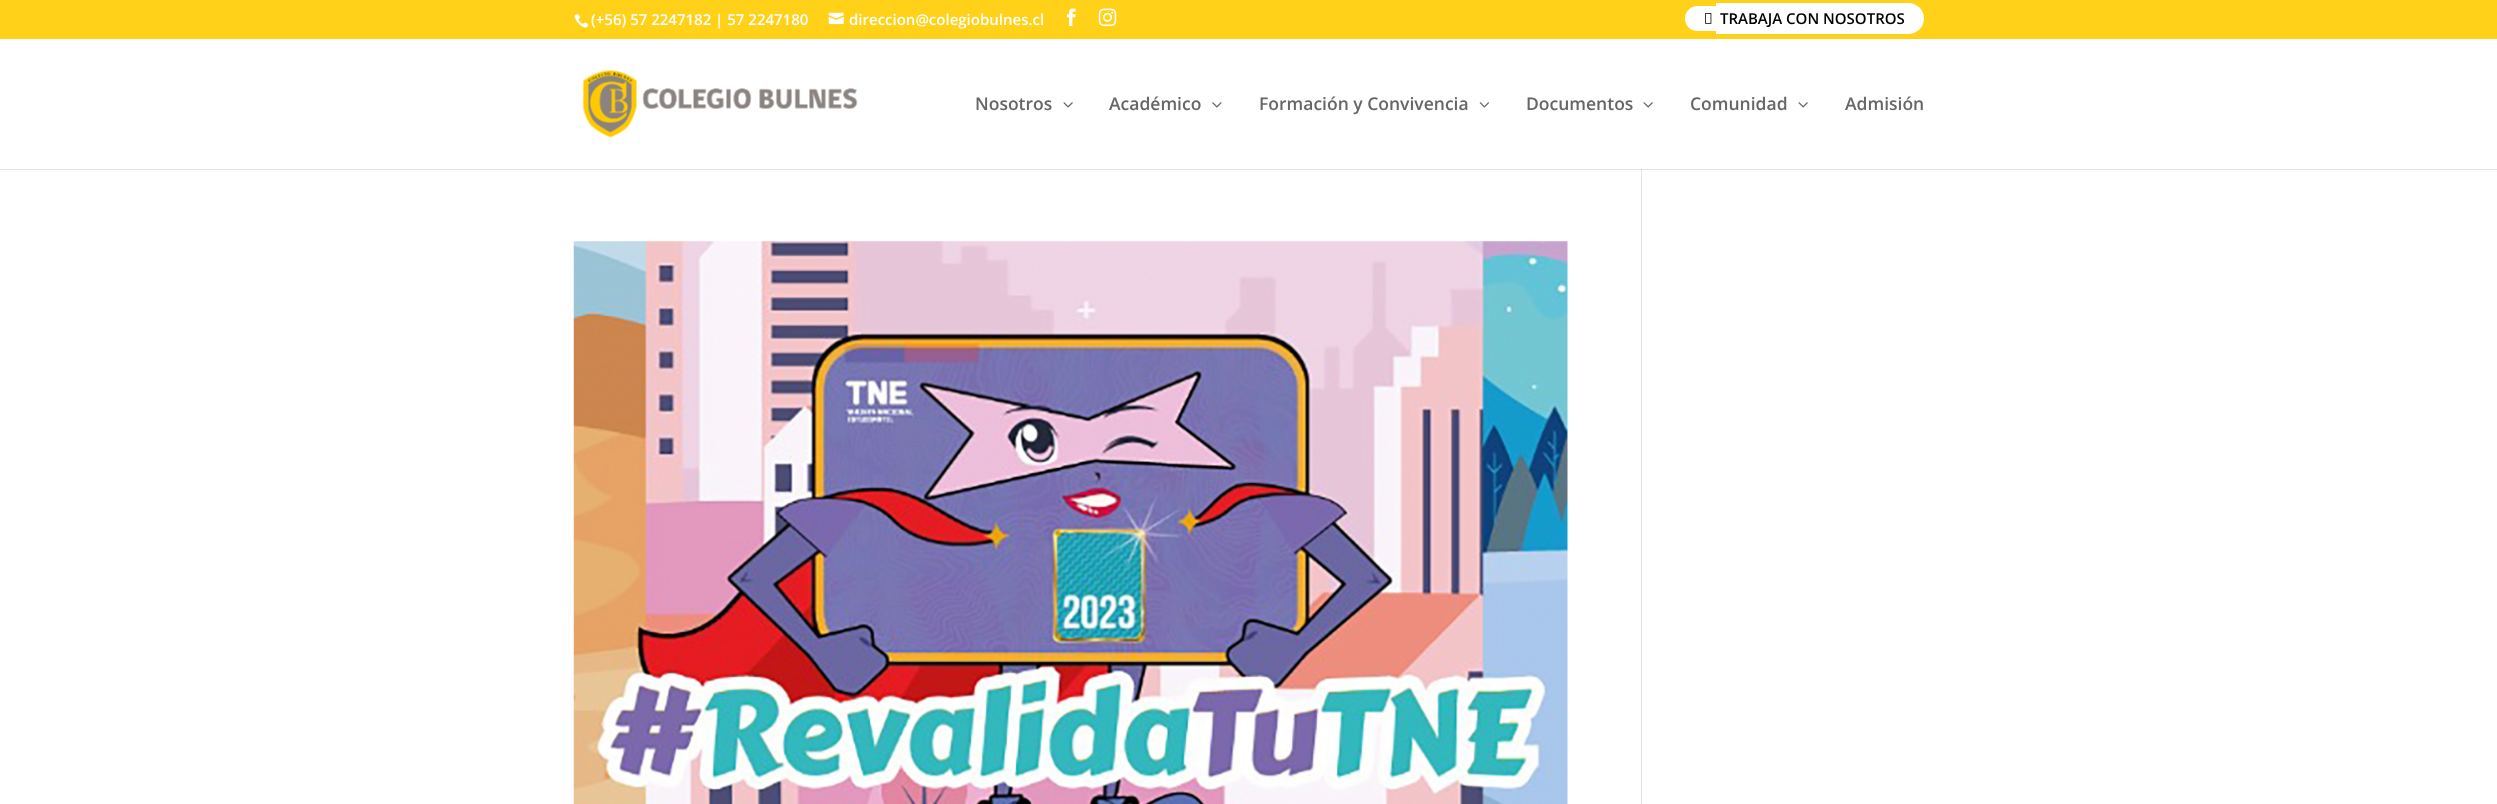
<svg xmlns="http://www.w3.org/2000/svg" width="2497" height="804">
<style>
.a{font:600 15px Open Sans;fill:#fff}
.b{font:600 15px Open Sans;fill:#000}
.c{font:600 17.5px Open Sans;fill:#666}
</style>
<rect width="100%" height="100%" fill="#fff"/>
<path fill="#ffd219" d="M0 0h2497v39H0z"/>
<image href="1.png" x="574" y="14" width="15" height="14"/>
<image href="2.png" x="828" y="12" width="16" height="13"/>
<image href="3.png" x="1066" y="8" width="10" height="19"/>
<image href="4.png" x="1098" y="8" width="19" height="19"/>
<path fill="#fff" d="M1697.5 6h18.5v25h-18.5c-7 0-12.5-5.5-12.5-12.5c0-7 5.5-12.5 12.5-12.5z"/>
<path fill="#fff" d="M1716 3h192.5c8.5 0 15.5 7 15.5 15.5c0 8.5-7 15.5-15.5 15.5h-192.5z"/>
<image href="5.png" x="1705" y="13" width="7" height="11"/>
<path fill="#e2e2e2" d="M1641 169h1v635H1641z"/>
<path fill="#0000001a" d="M0 169v1h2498v-130v129z"/>
<image href="6.png" x="582" y="70" width="276" height="68"/>
<image href="7.png" x="1063" y="102" width="10" height="6"/>
<image href="8.png" x="1212" y="102" width="10" height="6"/>
<image href="9.png" x="1479" y="102" width="10" height="6"/>
<image href="7.png" x="1643" y="102" width="10" height="6"/>
<image href="7.png" x="1798" y="102" width="10" height="6"/>
<image href="10.png" x="573" y="241" width="995" height="563"/>
<text class="a" x="591" y="25">(+56) 57 2247182 | 57 2247180</text>
<text class="a" x="849" y="25">direccion@colegiobulnes.cl</text>
<text class="b" x="1720" y="24">TRABAJA CON NOSOTROS</text>
<text class="c" x="975" y="110">Nosotros</text>
<text class="c" x="1109" y="110">Académico</text>
<text class="c" x="1259" y="110">Formación y Convivencia</text>
<text class="c" x="1526" y="110">Documentos</text>
<text class="c" x="1690" y="110">Comunidad</text>
<text class="c" x="1845" y="110">Admisión</text>
</svg>
